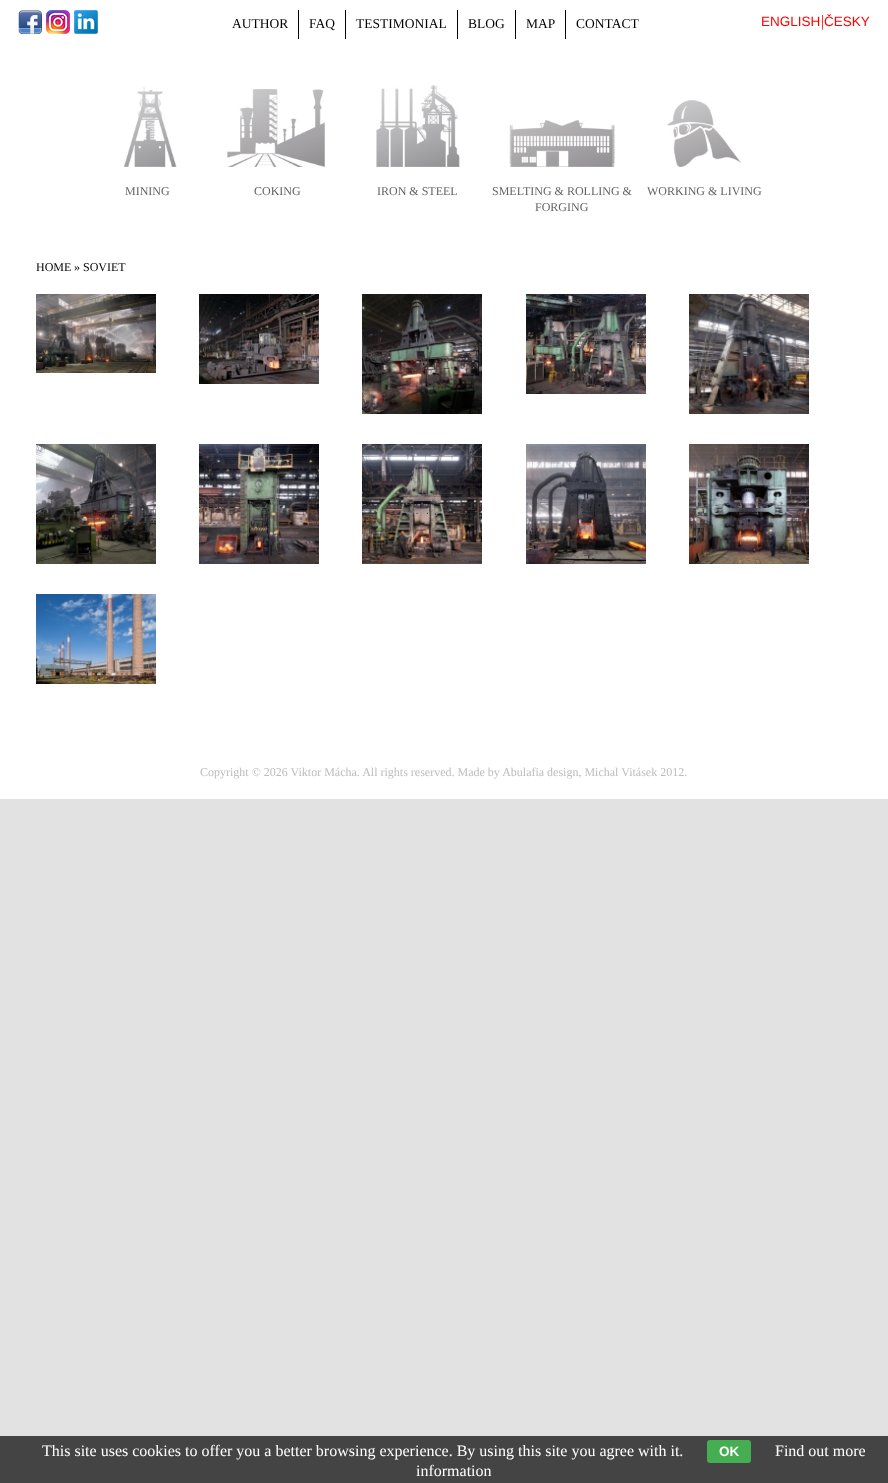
<svg xmlns="http://www.w3.org/2000/svg" width="888" height="1483">
<style>
.a{font:13.5px Liberation Serif;fill:#000}
.b{font:13.5px Liberation Sans;fill:#ff0200}
.c{font:16px Liberation Serif;fill:#ff0200}
.d{font:12px Liberation Serif;fill:#636365}
.e{font:12px Liberation Serif;fill:#000}
.f{font:12px Liberation Serif;fill:#bcbcbc}
.g{font:16px Liberation Serif;fill:#fff}
.h{font:bold 13.5px Liberation Sans;fill:#fff}
</style>
<rect width="100%" height="100%" fill="#e2e2e2"/>
<path fill="#fff" d="M0 0h888v799H0z"/>
<image href="1.png" x="18" y="10" width="24" height="24"/>
<image href="2.png" x="46" y="10" width="24" height="24"/>
<image href="3.png" x="74" y="10" width="24" height="24"/>
<path fill="#000" d="M298 10h1v29H298z"/>
<path fill="#000" d="M345 10h1v29H345z"/>
<path fill="#000" d="M457 10h1v29H457z"/>
<path fill="#000" d="M515 10h1v29H515z"/>
<path fill="#000" d="M565 10h1v29H565z"/>
<image href="4.png" x="124" y="87" width="53" height="80"/>
<image href="5.png" x="227" y="89" width="98" height="78"/>
<image href="6.png" x="376" y="85" width="84" height="82"/>
<image href="7.png" x="509" y="120" width="106" height="47"/>
<image href="8.png" x="667" y="100" width="74" height="67"/>
<image href="9.png" x="36" y="294" width="120" height="79"/>
<image href="10.png" x="199" y="294" width="120" height="90"/>
<image href="11.png" x="362" y="294" width="120" height="120"/>
<image href="12.png" x="526" y="294" width="120" height="100"/>
<image href="13.png" x="689" y="294" width="120" height="120"/>
<image href="14.png" x="36" y="444" width="120" height="120"/>
<image href="15.png" x="199" y="444" width="120" height="120"/>
<image href="16.png" x="362" y="444" width="120" height="120"/>
<image href="17.png" x="526" y="444" width="120" height="120"/>
<image href="18.png" x="689" y="444" width="120" height="120"/>
<image href="19.png" x="36" y="594" width="120" height="90"/>
<path fill="#444" d="M0 1436h888v47H0z"/>
<rect fill="#45ae52" x="707" y="1440" width="44" height="23" rx="3"/>
<text class="a" x="232" y="28">AUTHOR</text>
<text class="a" x="309" y="28">FAQ</text>
<text class="a" x="356" y="28">TESTIMONIAL</text>
<text class="a" x="468" y="28">BLOG</text>
<text class="a" x="526" y="28">MAP</text>
<text class="a" x="576" y="28">CONTACT</text>
<text class="b" x="761" y="26">ENGLISH</text>
<text class="c" x="821" y="26">|</text>
<text class="b" x="824" y="26">ČESKY</text>
<text class="d" x="125" y="195">MINING</text>
<text class="d" x="254" y="195">COKING</text>
<text class="d" x="377" y="195">IRON &amp; STEEL</text>
<text class="d" x="492" y="195">SMELTING &amp; ROLLING &amp;</text>
<text class="d" x="535" y="211">FORGING</text>
<text class="d" x="647" y="195">WORKING &amp; LIVING</text>
<text class="e" x="36" y="271">HOME</text>
<text class="e" x="74" y="271">» SOVIET</text>
<text class="f" x="200" y="776">Copyright © 2026 Viktor Mácha. All rights reserved. Made by Abulafia design, Michal Vitásek 2012.</text>
<text class="g" x="42" y="1456">This site uses cookies to offer you a better browsing experience. By using this site you agree with it.</text>
<text class="h" x="719" y="1456">OK</text>
<text class="g" x="775" y="1456">Find out more</text>
<text class="g" x="416" y="1476">information</text>
</svg>
